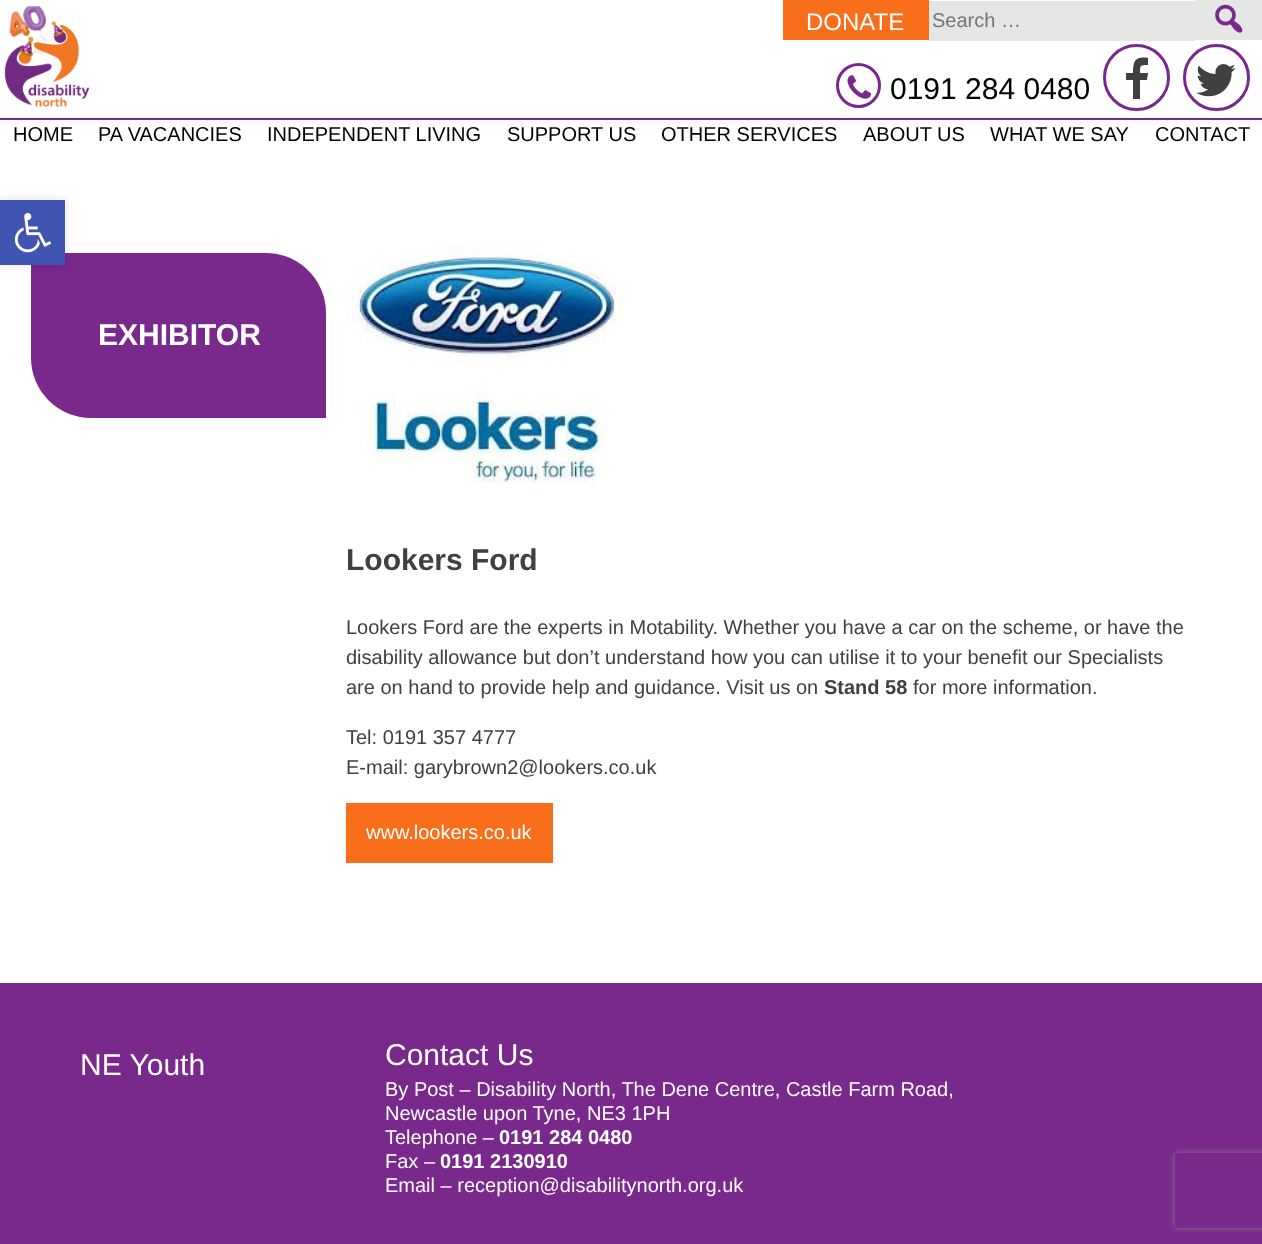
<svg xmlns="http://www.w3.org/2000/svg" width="1262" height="1244">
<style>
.a{font:24px Liberation Sans;fill:#fff}
.b{font:20px Liberation Sans;fill:#757575}
.c{font:30px Liberation Sans;fill:#000}
.d{font:20px Liberation Sans;fill:#000}
.e{font:bold 30px Liberation Sans;fill:#fff}
.f{font:bold 30px Liberation Sans;fill:#404040}
.g{font:20px Liberation Sans;fill:#404040}
.h{font:bold 20px Liberation Sans;fill:#404040}
.i{font:20px Liberation Sans;fill:#fff}
.j{font:30px Liberation Sans;fill:#fff}
.k{font:bold 20px Liberation Sans;fill:#fff}
</style>
<defs>
<clipPath id="clip1"><path d="M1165 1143h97v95h-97zm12.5 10h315c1.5 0 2.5 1 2.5 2.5v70c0 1.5-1 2.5-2.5 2.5h-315c-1.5 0-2.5-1-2.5-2.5v-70c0-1.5 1-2.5 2.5-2.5z" clip-rule="evenodd"/></clipPath>
</defs>
<rect width="100%" height="100%" fill="#fff"/>
<image href="1.png" x="4" y="6" width="86" height="101"/>
<path fill="#f96e1b" d="M783 0h146v40H783z"/>
<path fill="#e5e5e5" d="M929 1h266v40H929z"/>
<path fill="#e6e6e6" d="M1195 0h67v40H1195z"/>
<image href="2.png" x="1215" y="4" width="28" height="29"/>
<circle fill="none" stroke="#79288c" stroke-width="3" cx="858.5" cy="85.5" r="21"/>
<image href="3.png" x="847" y="75" width="25" height="24"/>
<circle fill="none" stroke="#79288c" stroke-width="3" cx="1136.5" cy="77.5" r="32"/>
<path fill="#404040" d="M1148 58c-13-2-15 3-15 15h-7v7h7v19h7v-19h7l1-7h-8c0-8 0-8 8-8z"/>
<circle fill="none" stroke="#79288c" stroke-width="3" cx="1216.5" cy="77.5" r="32"/>
<image href="4.png" x="1196" y="64" width="40" height="33"/>
<path fill="#79288c" d="M0 118h1262v2H0z"/>
<path fill="#79288c" d="M31 253h235c33 0 60 27 60 60v105h-235c-33 0-60-27-60-60z"/>
<image href="5.png" x="346" y="243" width="280" height="241"/>
<path fill="#f96e1b" d="M346 803h207v60H346z"/>
<path fill="#79288c" d="M0 983h1262v261H0z"/>
<path fill="#0000001a" filter="blur(6px)" d="M0 200h65v65H0z"/>
<path fill="#4054b2" d="M0 200h65v65H0z"/>
<image href="6.png" x="14" y="213" width="38" height="40"/>
<g clip-path="url(#clip1)">
<rect fill="#808080" filter="blur(3px)" x="1175" y="1153" width="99" height="75" rx="2.5"/>
</g>
<text class="a" x="806" y="30">DONATE</text>
<text class="b" x="932" y="27">Search …</text>
<text class="c" x="890" y="99">0191 284 0480</text>
<text class="d" x="13" y="141">HOME</text>
<text class="d" x="98" y="141">PA VACANCIES</text>
<text class="d" x="267" y="141">INDEPENDENT LIVING</text>
<text class="d" x="507" y="141">SUPPORT US</text>
<text class="d" x="661" y="141">OTHER SERVICES</text>
<text class="d" x="863" y="141">ABOUT US</text>
<text class="d" x="990" y="141">WHAT WE SAY</text>
<text class="d" x="1155" y="141">CONTACT</text>
<text class="e" x="98" y="345">EXHIBITOR</text>
<text class="f" x="346" y="570">Lookers Ford</text>
<text class="g" x="346" y="634">Lookers Ford are the experts in Motability. Whether you have a car on the scheme, or have the</text>
<text class="g" x="346" y="664">disability allowance but don’t understand how you can utilise it to your benefit our Specialists</text>
<text class="g" x="346" y="694">are on hand to provide help and guidance. Visit us on</text>
<text class="h" x="824" y="694">Stand 58</text>
<text class="g" x="913" y="694">for more information.</text>
<text class="g" x="346" y="744">Tel: 0191 357 4777</text>
<text class="g" x="346" y="774">E-mail: garybrown2@lookers.co.uk</text>
<text class="i" x="366" y="839">www.lookers.co.uk</text>
<text class="j" x="80" y="1075">NE Youth</text>
<text class="j" x="385" y="1065">Contact Us</text>
<text class="i" x="385" y="1096">By Post – Disability North, The Dene Centre, Castle Farm Road,</text>
<text class="i" x="385" y="1120">Newcastle upon Tyne, NE3 1PH</text>
<text class="i" x="385" y="1144">Telephone –</text>
<text class="k" x="499" y="1144">0191 284 0480</text>
<text class="i" x="385" y="1168">Fax –</text>
<text class="k" x="440" y="1168">0191 2130910</text>
<text class="i" x="385" y="1192">Email – reception@disabilitynorth.org.uk</text>
</svg>
